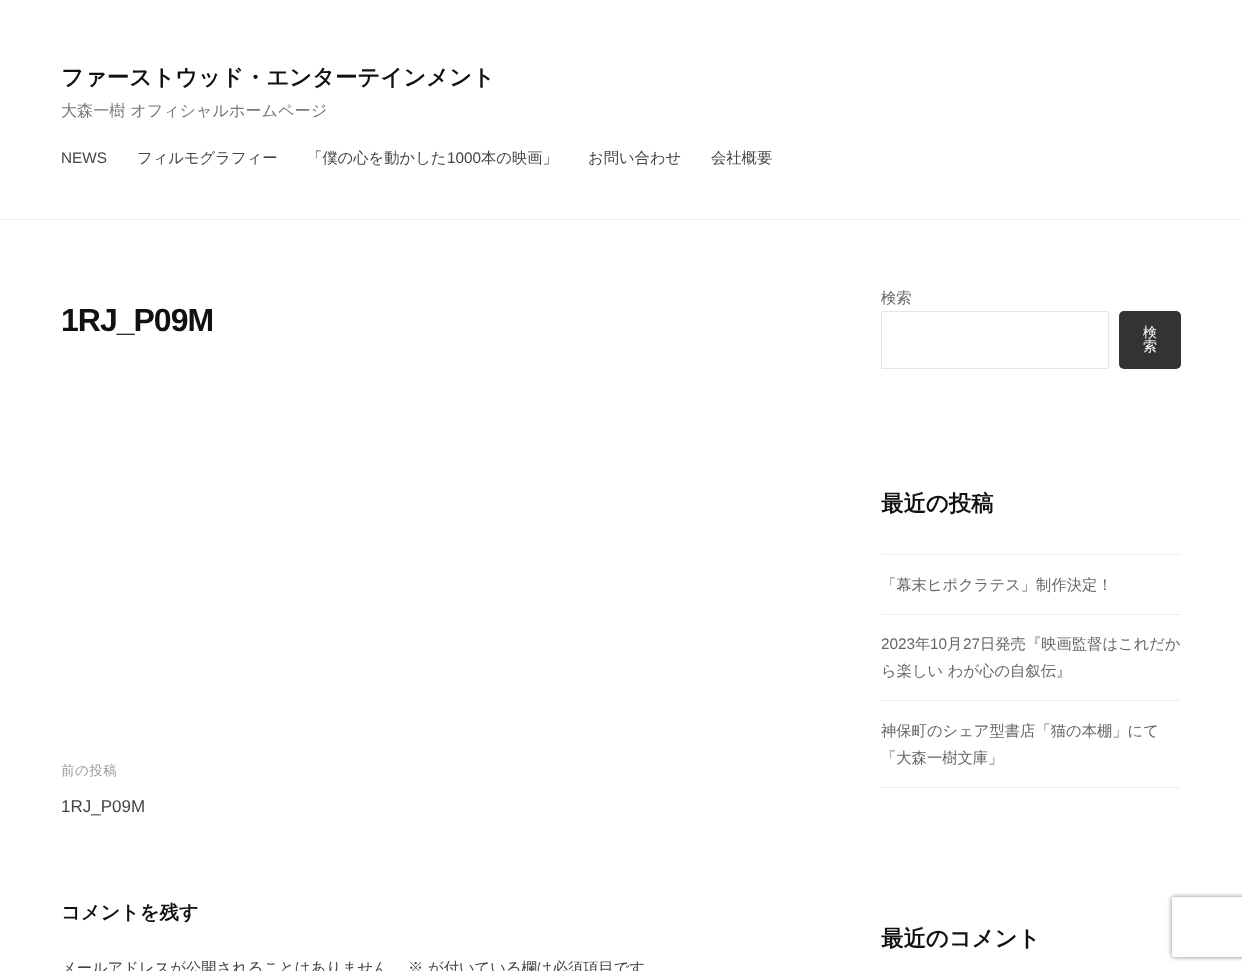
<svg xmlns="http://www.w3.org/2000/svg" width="1242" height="971">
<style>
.a{font:bold 22.4px WenQuanYi Zen Hei;fill:#111}
.b{font:500 16.1px WenQuanYi Zen Hei;fill:#777}
.c{font:15.3px Liberation Sans;fill:#444}
.d{font:500 15.3px WenQuanYi Zen Hei;fill:#444}
.e{font:bold 32px Liberation Sans;letter-spacing:-1px;fill:#111}
.f{font:500 13.5px WenQuanYi Zen Hei;letter-spacing:0.5px;fill:#999}
.g{font:17px Liberation Sans;fill:#444}
.h{font:bold 19.25px WenQuanYi Zen Hei;fill:#111}
.i{font:500 15.3px WenQuanYi Zen Hei;fill:#666}
.j{font:500 14px WenQuanYi Zen Hei;fill:#fff}
.k{font:15.3px Liberation Sans;fill:#666}
</style>
<defs>
<clipPath id="clip1"><path d="M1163 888h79v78h-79zm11 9h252c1 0 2 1 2 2v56c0 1-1 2-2 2h-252c-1 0-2-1-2-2v-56c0-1 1-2 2-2z" clip-rule="evenodd"/></clipPath>
</defs>
<rect width="100%" height="100%" fill="#fff"/>
<path fill="#eee" d="M0 219h1242v1H0z"/>
<path fill="none" stroke="#e6e6e6" d="M881.5 311.5h227v57H881.5z"/>
<rect fill="#333" x="1119" y="311" width="62" height="58" rx="5"/>
<path fill="#eee" d="M881 554h300v1H881z"/>
<path fill="#eee" d="M881 614h300v1H881z"/>
<path fill="#eee" d="M881 700h300v1H881z"/>
<path fill="#eee" d="M881 787h300v1H881z"/>
<g clip-path="url(#clip1)">
<rect fill="#808080" filter="blur(2.5px)" x="1172" y="897" width="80" height="60" rx="2"/>
</g>
<text class="a" x="61" y="85">ファーストウッド・エンターテインメント</text>
<text class="b" x="61" y="116">大森一樹 オフィシャルホームページ</text>
<text class="c" x="61" y="163">NEWS</text>
<text class="d" x="137" y="163">フィルモグラフィー</text>
<text class="d" x="307" y="163">「僕の心を動かした</text>
<text class="c" x="447" y="163">1000</text>
<text class="d" x="481" y="163">本の映画」</text>
<text class="d" x="588" y="163">お問い合わせ</text>
<text class="d" x="711" y="163">会社概要</text>
<text class="e" x="61" y="331">1RJ_P09M</text>
<text class="f" x="61" y="775">前の投稿</text>
<text class="g" x="61" y="812">1RJ_P09M</text>
<text class="h" x="61" y="919">コメントを残す</text>
<text class="d" x="61" y="973">メールアドレスが公開されることはありません</text>
<text class="d" x="408" y="973">※</text>
<text class="d" x="428" y="973">が付いている欄は必須項目です</text>
<text class="i" x="881" y="303">検索</text>
<text class="j" x="1143" y="337">検</text>
<text class="j" x="1143" y="351">索</text>
<text class="a" x="881" y="511">最近の投稿</text>
<text class="i" x="881" y="590">「幕末ヒポクラテス」制作決定！</text>
<text class="k" x="881" y="649">2023</text>
<text class="i" x="915" y="649">年</text>
<text class="k" x="930" y="649">10</text>
<text class="i" x="947" y="649">月</text>
<text class="k" x="963" y="649">27</text>
<text class="i" x="980" y="649">日発売『映画監督はこれだか</text>
<text class="i" x="881" y="676">ら楽しい わが心の自叙伝』</text>
<text class="i" x="881" y="736">神保町のシェア型書店「猫の本棚」にて</text>
<text class="i" x="881" y="763">「大森一樹文庫」</text>
<text class="a" x="881" y="946">最近のコメント</text>
</svg>
